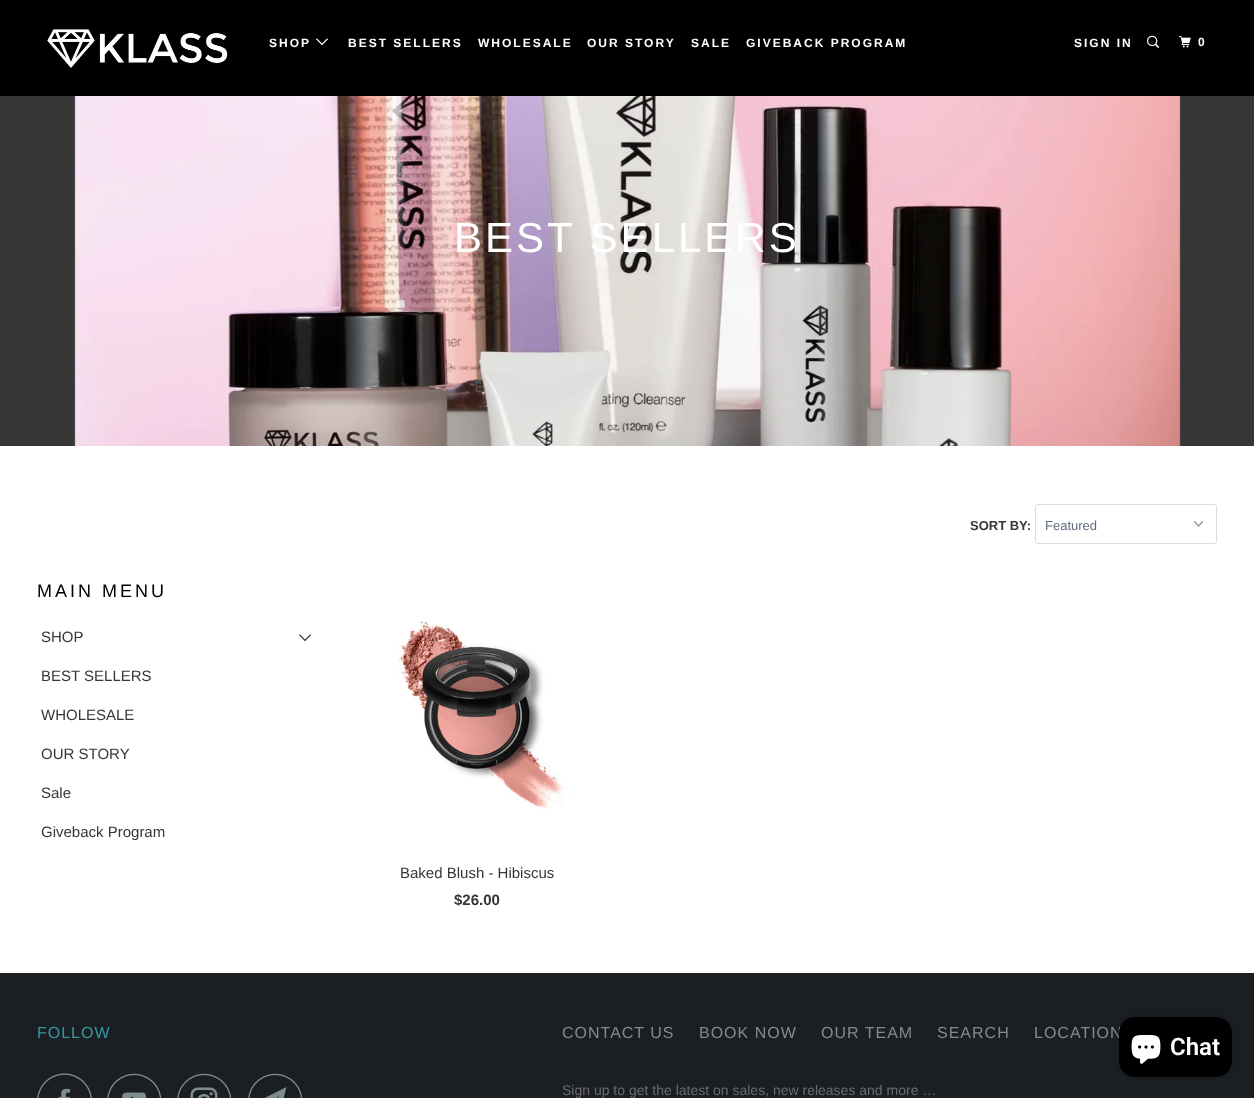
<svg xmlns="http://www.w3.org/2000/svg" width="1254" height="1098">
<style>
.a{font:bold 12px Liberation Sans;letter-spacing:2px;fill:#fff}
.b{font:42px Liberation Sans;letter-spacing:3px;fill:#fff}
.c{font:bold 13px Liberation Sans;fill:#363636}
.d{font:13px Liberation Sans;fill:#5f6a7d}
.e{font:18px Liberation Sans;letter-spacing:3px;fill:#000}
.f{font:15px Liberation Sans;fill:#363636}
.g{font:bold 15px Liberation Sans;fill:#363636}
.h{font:16px Liberation Sans;letter-spacing:1px;fill:#3399a1}
.i{font:16px Liberation Sans;letter-spacing:1px;fill:#7f8c8d}
.j{font:14px Liberation Sans;fill:#6b6b6b}
.k{font:600 24px Roboto;fill:#fff}
</style>
<rect width="100%" height="100%" fill="#fff"/>
<path fill="#000" d="M0 0h1254v96H0z"/>
<image href="1.png" x="47" y="29" width="181" height="39"/>
<image href="2.png" x="316" y="38" width="12" height="8"/>
<image href="3.png" x="1147" y="35" width="12" height="13"/>
<image href="4.png" x="1179" y="36" width="12" height="12"/>
<path fill="#363636" d="M0 96h1254v350H0z"/>
<image href="5.png" x="74" y="96" width="1107" height="350"/>
<image href="6.png" x="1194" y="521" width="9" height="6"/>
<rect fill="none" stroke="#d9dbdc" x="1035.5" y="504.5" width="181" height="39" rx="2.5"/>
<image href="7.png" x="299" y="634" width="12" height="8"/>
<image href="8.png" x="398" y="621" width="173" height="188"/>
<path fill="#1b1f23" d="M0 973h1254v125H0z"/>
<image href="9.png" x="37" y="1073" width="55" height="25"/>
<image href="10.png" x="107" y="1073" width="55" height="25"/>
<image href="11.png" x="177" y="1073" width="55" height="25"/>
<image href="12.png" x="248" y="1073" width="55" height="25"/>
<rect fill="#00000026" filter="blur(2.5px)" x="1119" y="1017" width="113" height="60" rx="16"/>
<text class="a" x="269" y="47">SHOP</text>
<text class="a" x="348" y="47">BEST SELLERS</text>
<text class="a" x="478" y="47">WHOLESALE</text>
<text class="a" x="587" y="47">OUR STORY</text>
<text class="a" x="691" y="47">SALE</text>
<text class="a" x="746" y="47">GIVEBACK PROGRAM</text>
<text class="a" x="1074" y="47">SIGN IN</text>
<text class="a" x="1198" y="46">0</text>
<text class="b" x="454" y="252">BEST SELLERS</text>
<text class="c" x="970" y="530">SORT BY:</text>
<text class="d" x="1045" y="530">Featured</text>
<text class="e" x="37" y="597">MAIN MENU</text>
<text class="f" x="41" y="642">SHOP</text>
<text class="f" x="41" y="681">BEST SELLERS</text>
<text class="f" x="41" y="720">WHOLESALE</text>
<text class="f" x="41" y="759">OUR STORY</text>
<text class="f" x="41" y="798">Sale</text>
<text class="f" x="41" y="837">Giveback Program</text>
<text class="f" x="400" y="878">Baked Blush - Hibiscus</text>
<text class="g" x="454" y="905">$26.00</text>
<text class="h" x="37" y="1038">FOLLOW</text>
<text class="i" x="562" y="1038">CONTACT US</text>
<text class="i" x="699" y="1038">BOOK NOW</text>
<text class="i" x="821" y="1038">OUR TEAM</text>
<text class="i" x="937" y="1038">SEARCH</text>
<text class="i" x="1034" y="1038">LOCATION</text>
<text class="j" x="562" y="1095">Sign up to get the latest on sales, new releases and more …</text>
<rect fill="#000" x="1119" y="1017" width="113" height="60" rx="16"/>
<image href="13.png" x="1131" y="1035" width="30" height="29"/>
<text class="k" x="1170" y="1055">Chat</text>
</svg>
